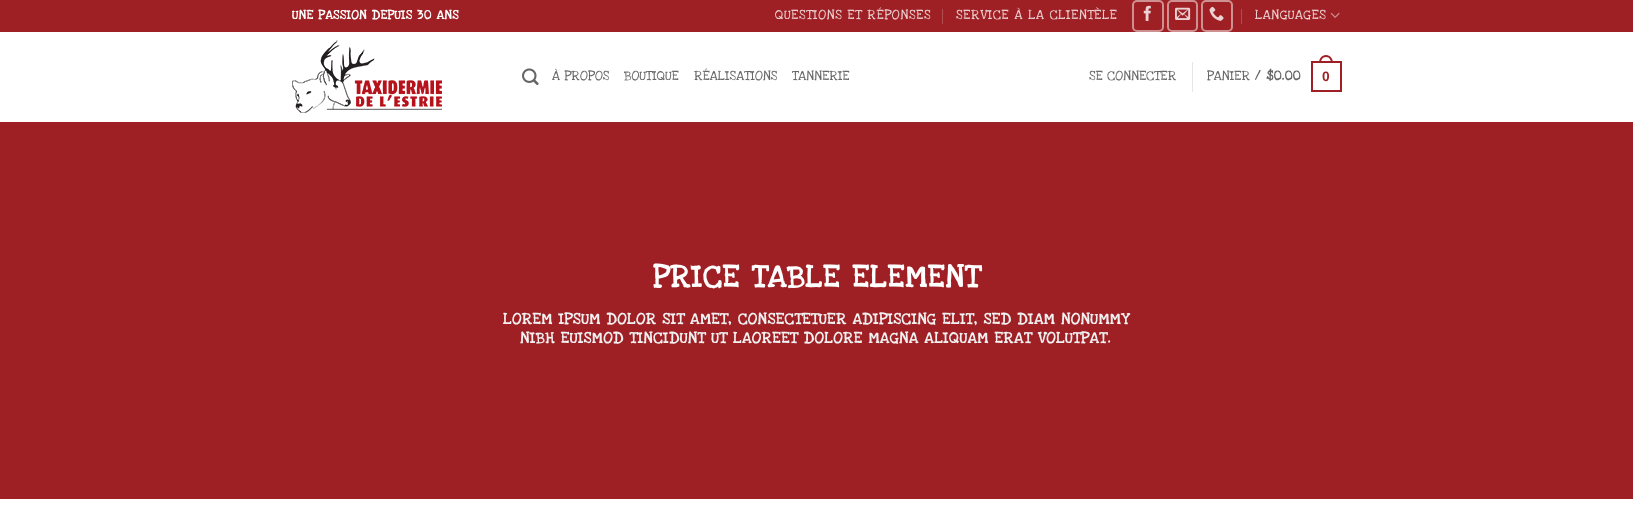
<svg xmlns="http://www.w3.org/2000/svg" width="1633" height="514">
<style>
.a{font:bold 13px Love Ya Like A Sister;letter-spacing:0.65px;fill:#fff}
.b{font:13.75px Love Ya Like A Sister;letter-spacing:0.85px;fill:#ecd2d3}
.c{font:13.75px Love Ya Like A Sister;letter-spacing:0.25px;fill:#656565}
.d{font:bold 13.75px Love Ya Like A Sister;letter-spacing:0.25px;fill:#656565}
.e{font:bold 13.75px Liberation Sans;letter-spacing:0.25px;fill:#9e2025}
.f{font:bold 32px Love Ya Like A Sister;letter-spacing:1.6px;fill:#fff}
.g{font:bold 16px Love Ya Like A Sister;letter-spacing:0.85px;fill:#f1f1f1}
</style>
<rect width="100%" height="100%" fill="#fff"/>
<path fill="#9e2025" d="M0 0h1633v32H0z"/>
<path fill="#b14d51" d="M942 9h1v15H942z"/>
<rect fill="none" stroke="#cf9092" stroke-width="2" x="1133" y="1" width="30" height="30" rx="4"/>
<image href="1.png" x="1143" y="5" width="8" height="16"/>
<rect fill="none" stroke="#cf9092" stroke-width="2" x="1168" y="1" width="29" height="30" rx="4"/>
<image href="2.png" x="1175" y="7" width="16" height="13"/>
<rect fill="none" stroke="#cf9092" stroke-width="2" x="1202" y="1" width="30" height="30" rx="4"/>
<image href="3.png" x="1209" y="6" width="15" height="15"/>
<path fill="#b14d51" d="M1241 9h1v15H1241z"/>
<image href="4.png" x="1330" y="12" width="10" height="6"/>
<image href="5.png" x="292" y="40" width="150" height="73"/>
<image href="6.png" x="522" y="68" width="17" height="17"/>
<path fill="#e6e6e6" d="M1192 62h1v30H1192z"/>
<path fill="none" stroke="#9e2025" stroke-width="2" d="M1312 62h29v29H1312z"/>
<path fill="#9e2025" fill-rule="evenodd" d="M1326 55c4.5 0 7 4 7 8h-14c0-4 2.5-8 7-8zm0 2c3.5 0 5 3 5 6h-10c0-3 1.5-6 5-6z"/>
<path fill="#9e2025" d="M0 122h1633v377H0z"/>
<path fill="#962429" d="M292 122h1050v1H292z"/>
<text class="a" x="292" y="19">UNE PASSION DEPUIS 30 ANS</text>
<text class="b" x="775" y="19">QUESTIONS ET RÉPONSES</text>
<text class="b" x="956" y="19">SERVICE À LA CLIENTÈLE</text>
<text class="b" x="1255" y="19">LANGUAGES</text>
<text class="c" x="552" y="80">À PROPOS</text>
<text class="c" x="624" y="80">BOUTIQUE</text>
<text class="c" x="694" y="80">RÉALISATIONS</text>
<text class="c" x="792" y="80">TANNERIE</text>
<text class="c" x="1089" y="80">SE CONNECTER</text>
<text class="c" x="1207" y="80">PANIER /</text>
<text class="d" x="1266" y="80">$0.00</text>
<text class="e" x="1322" y="81">0</text>
<text class="f" x="653" y="287">PRICE TABLE ELEMENT</text>
<text class="g" x="503" y="324">LOREM IPSUM DOLOR SIT AMET, CONSECTETUER ADIPISCING ELIT, SED DIAM NONUMMY</text>
<text class="g" x="520" y="343">NIBH EUISMOD TINCIDUNT UT LAOREET DOLORE MAGNA ALIQUAM ERAT VOLUTPAT.</text>
</svg>
